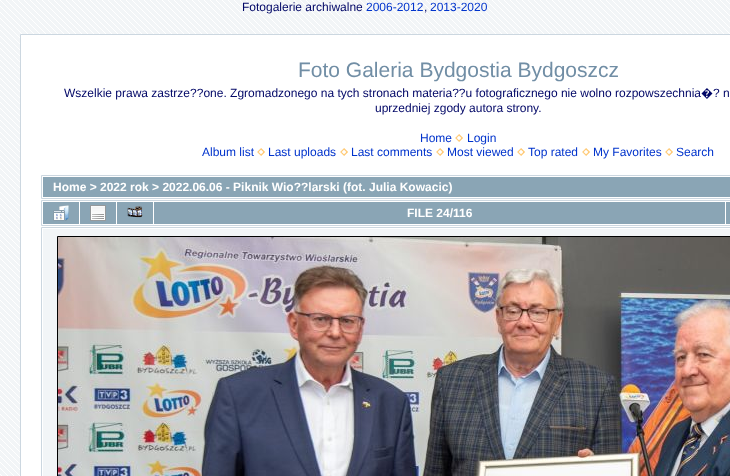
<svg xmlns="http://www.w3.org/2000/svg" width="730" height="476">
<style>
.a{font:12px Liberation Sans;fill:#000666}
.b{font:12px Liberation Sans;fill:#03c}
.c{font:21px Liberation Sans;fill:#718ea5}
.d{font:12px Noto Sans;fill:#000666}
.e{font:bold 12px Liberation Sans;fill:#fff}
</style>
<rect width="100%" height="100%" fill="#f2f5f7"/>
<image href="1.png" x="0" y="0" width="730" height="476"/>
<path fill="#fff" stroke="#ccd7e0" d="M20.5 34.5h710v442H20.5z"/>
<image href="2.png" x="455" y="134" width="8" height="8"/>
<image href="2.png" x="257" y="148" width="8" height="8"/>
<image href="2.png" x="340" y="148" width="8" height="8"/>
<image href="2.png" x="436" y="148" width="8" height="8"/>
<image href="2.png" x="517" y="148" width="8" height="8"/>
<image href="2.png" x="582" y="148" width="8" height="8"/>
<image href="2.png" x="665" y="148" width="8" height="8"/>
<path fill="none" stroke="#ccd7e0" d="M41.5 175.5h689v23H41.5z"/>
<path fill="#8aa5b5" d="M43 177h687v20H43z"/>
<path fill="none" stroke="#ccd7e0" d="M41.5 200.5h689v25H41.5z"/>
<path fill="#8aa5b5" d="M43 202h36v22H43z"/>
<image href="3.png" x="53" y="205" width="16" height="16"/>
<path fill="#8aa5b5" d="M80 202h36v22H80z"/>
<image href="4.png" x="90" y="205" width="16" height="16"/>
<path fill="#8aa5b5" d="M117 202h36v22H117z"/>
<image href="5.png" x="127" y="206" width="16" height="12"/>
<path fill="#8aa5b5" d="M154 202h571v22H154z"/>
<path fill="#8aa5b5" d="M726 202h4v22H726z"/>
<path fill="none" stroke="#ccd7e0" d="M41.5 227.5h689v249H41.5z"/>
<path fill="#f2f5f7" d="M43 229h687v247H43z"/>
<path fill="none" stroke="#000" d="M57.5 236.5h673v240H57.5z"/>
<image href="6.png" x="58" y="237" width="672" height="239"/>
<text class="a" x="242" y="11">Fotogalerie archiwalne</text>
<text class="b" x="366" y="11">2006-2012</text>
<text class="a" x="424" y="11">,</text>
<text class="b" x="430" y="11">2013-2020</text>
<text class="c" x="298" y="77">Foto Galeria Bydgostia Bydgoszcz</text>
<text class="a" x="64" y="97">Wszelkie prawa zastrze??one. Zgromadzonego na tych stronach materia??u fotograficznego nie wolno rozpowszechnia</text>
<text class="d" x="701" y="97">�</text>
<text class="a" x="713" y="97">? n</text>
<text class="a" x="375" y="112">uprzedniej zgody autora strony.</text>
<text class="b" x="420" y="142">Home</text>
<text class="b" x="467" y="142">Login</text>
<text class="b" x="202" y="156">Album list</text>
<text class="b" x="268" y="156">Last uploads</text>
<text class="b" x="351" y="156">Last comments</text>
<text class="b" x="447" y="156">Most viewed</text>
<text class="b" x="528" y="156">Top rated</text>
<text class="b" x="593" y="156">My Favorites</text>
<text class="b" x="676" y="156">Search</text>
<text class="e" x="53" y="191">Home &gt; 2022 rok &gt; 2022.06.06 - Piknik Wio??larski (fot. Julia Kowacic)</text>
<text class="e" x="407" y="217">FILE 24/116</text>
</svg>
